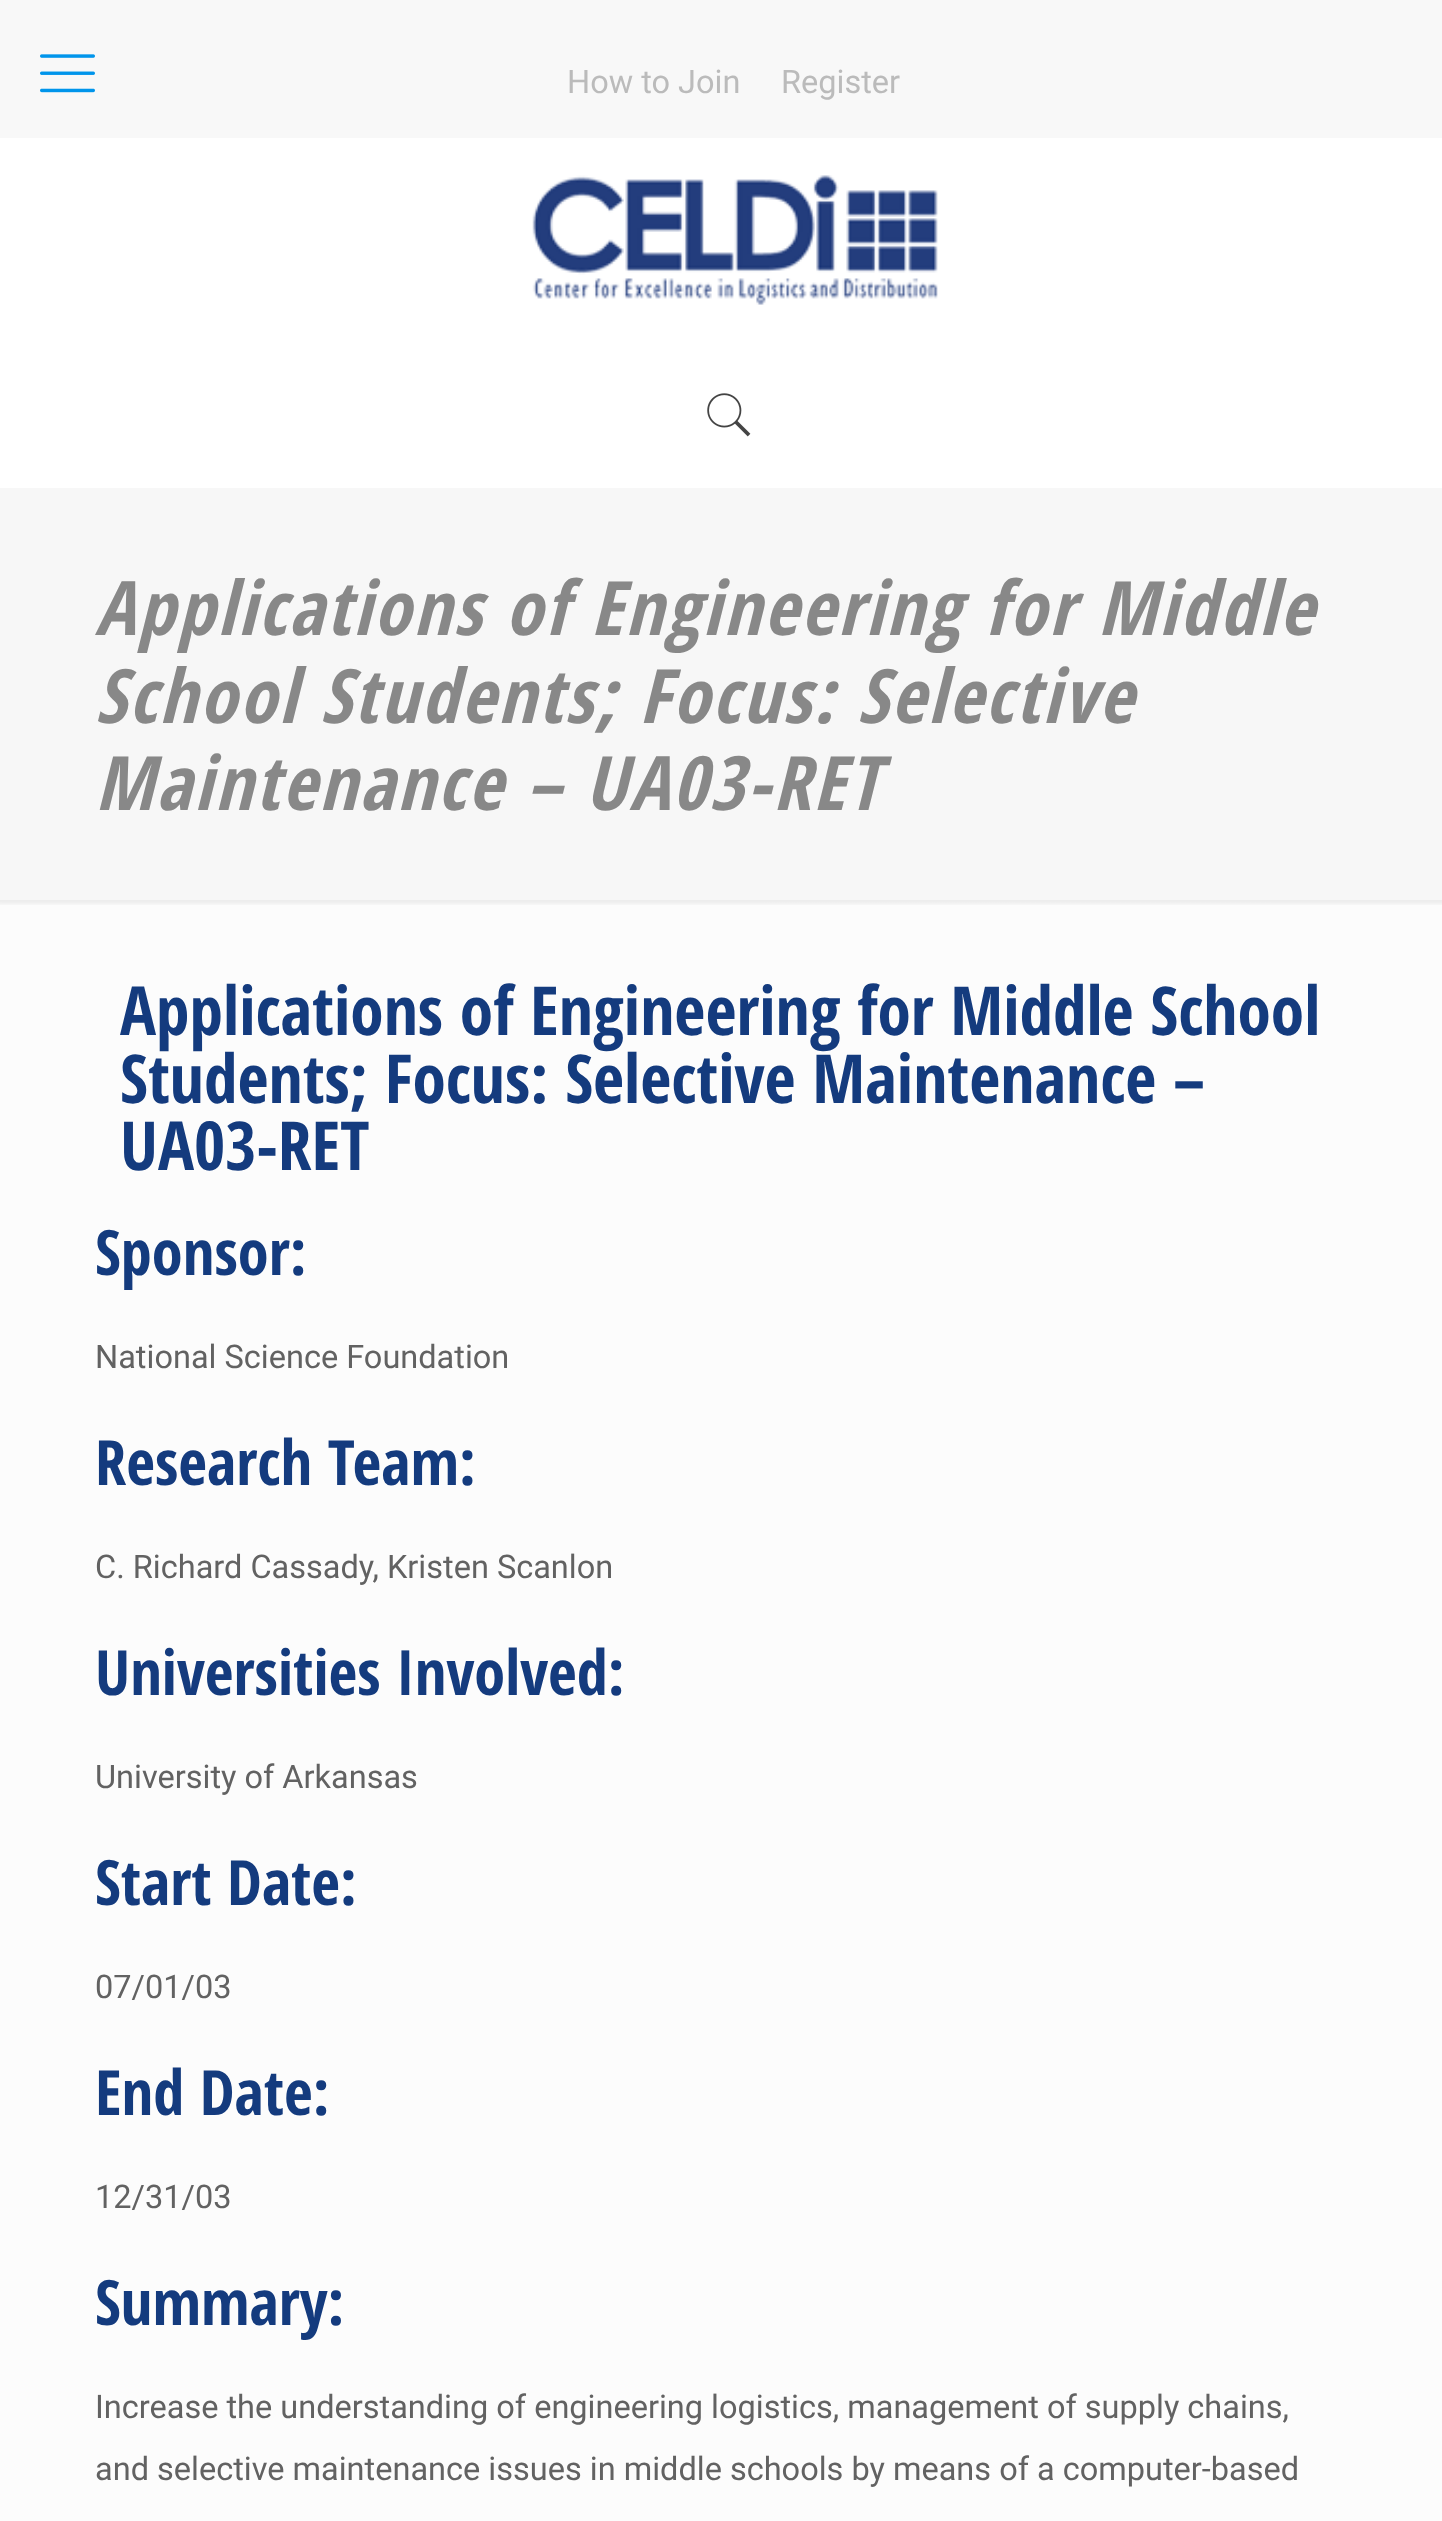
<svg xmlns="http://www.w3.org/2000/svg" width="1442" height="2521">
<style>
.a{font:32.5px Roboto;fill:#bbb}
.b{font:italic bold 75px Open Sans Condensed;letter-spacing:2.5px;fill:#888}
.c{font:bold 67.5px Open Sans Condensed;fill:#143b7e}
.d{font:bold 62.5px Open Sans Condensed;fill:#143b7e}
.e{font:32.5px Roboto;fill:#626262}
</style>
<rect width="100%" height="100%" fill="#fcfcfc"/>
<path fill="#fff" d="M0 138h1442v350H0z"/>
<path fill="#f8f8f8" d="M0 0h1442v138H0z"/>
<image href="1.png" x="40" y="54" width="55" height="39"/>
<image href="2.png" x="532" y="175" width="406" height="130"/>
<image href="3.png" x="707" y="393" width="44" height="44"/>
<path fill="#f7f7f7" d="M0 488h1442v412H0z"/>
<image href="4.png" x="0" y="900" width="1442" height="5"/>
<text class="a" x="567" y="93">How to Join</text>
<text class="a" x="781" y="93">Register</text>
<text class="b" x="95" y="635">Applications of Engineering for Middle</text>
<text class="b" x="95" y="723">School Students; Focus: Selective</text>
<text class="b" x="95" y="810">Maintenance – UA03-RET</text>
<text class="c" x="120" y="1035">Applications of Engineering for Middle School</text>
<text class="c" x="120" y="1103">Students; Focus: Selective Maintenance –</text>
<text class="c" x="120" y="1170">UA03-RET</text>
<text class="d" x="95" y="1275">Sponsor:</text>
<text class="e" x="95" y="1368">National Science Foundation</text>
<text class="d" x="95" y="1485">Research Team:</text>
<text class="e" x="95" y="1578">C. Richard Cassady, Kristen Scanlon</text>
<text class="d" x="95" y="1695">Universities Involved:</text>
<text class="e" x="95" y="1788">University of Arkansas</text>
<text class="d" x="95" y="1905">Start Date:</text>
<text class="e" x="95" y="1998">07/01/03</text>
<text class="d" x="95" y="2115">End Date:</text>
<text class="e" x="95" y="2208">12/31/03</text>
<text class="d" x="95" y="2325">Summary:</text>
<text class="e" x="95" y="2418">Increase the understanding of engineering logistics, management of supply chains,</text>
<text class="e" x="95" y="2480">and selective maintenance issues in middle schools by means of a computer-based</text>
</svg>
